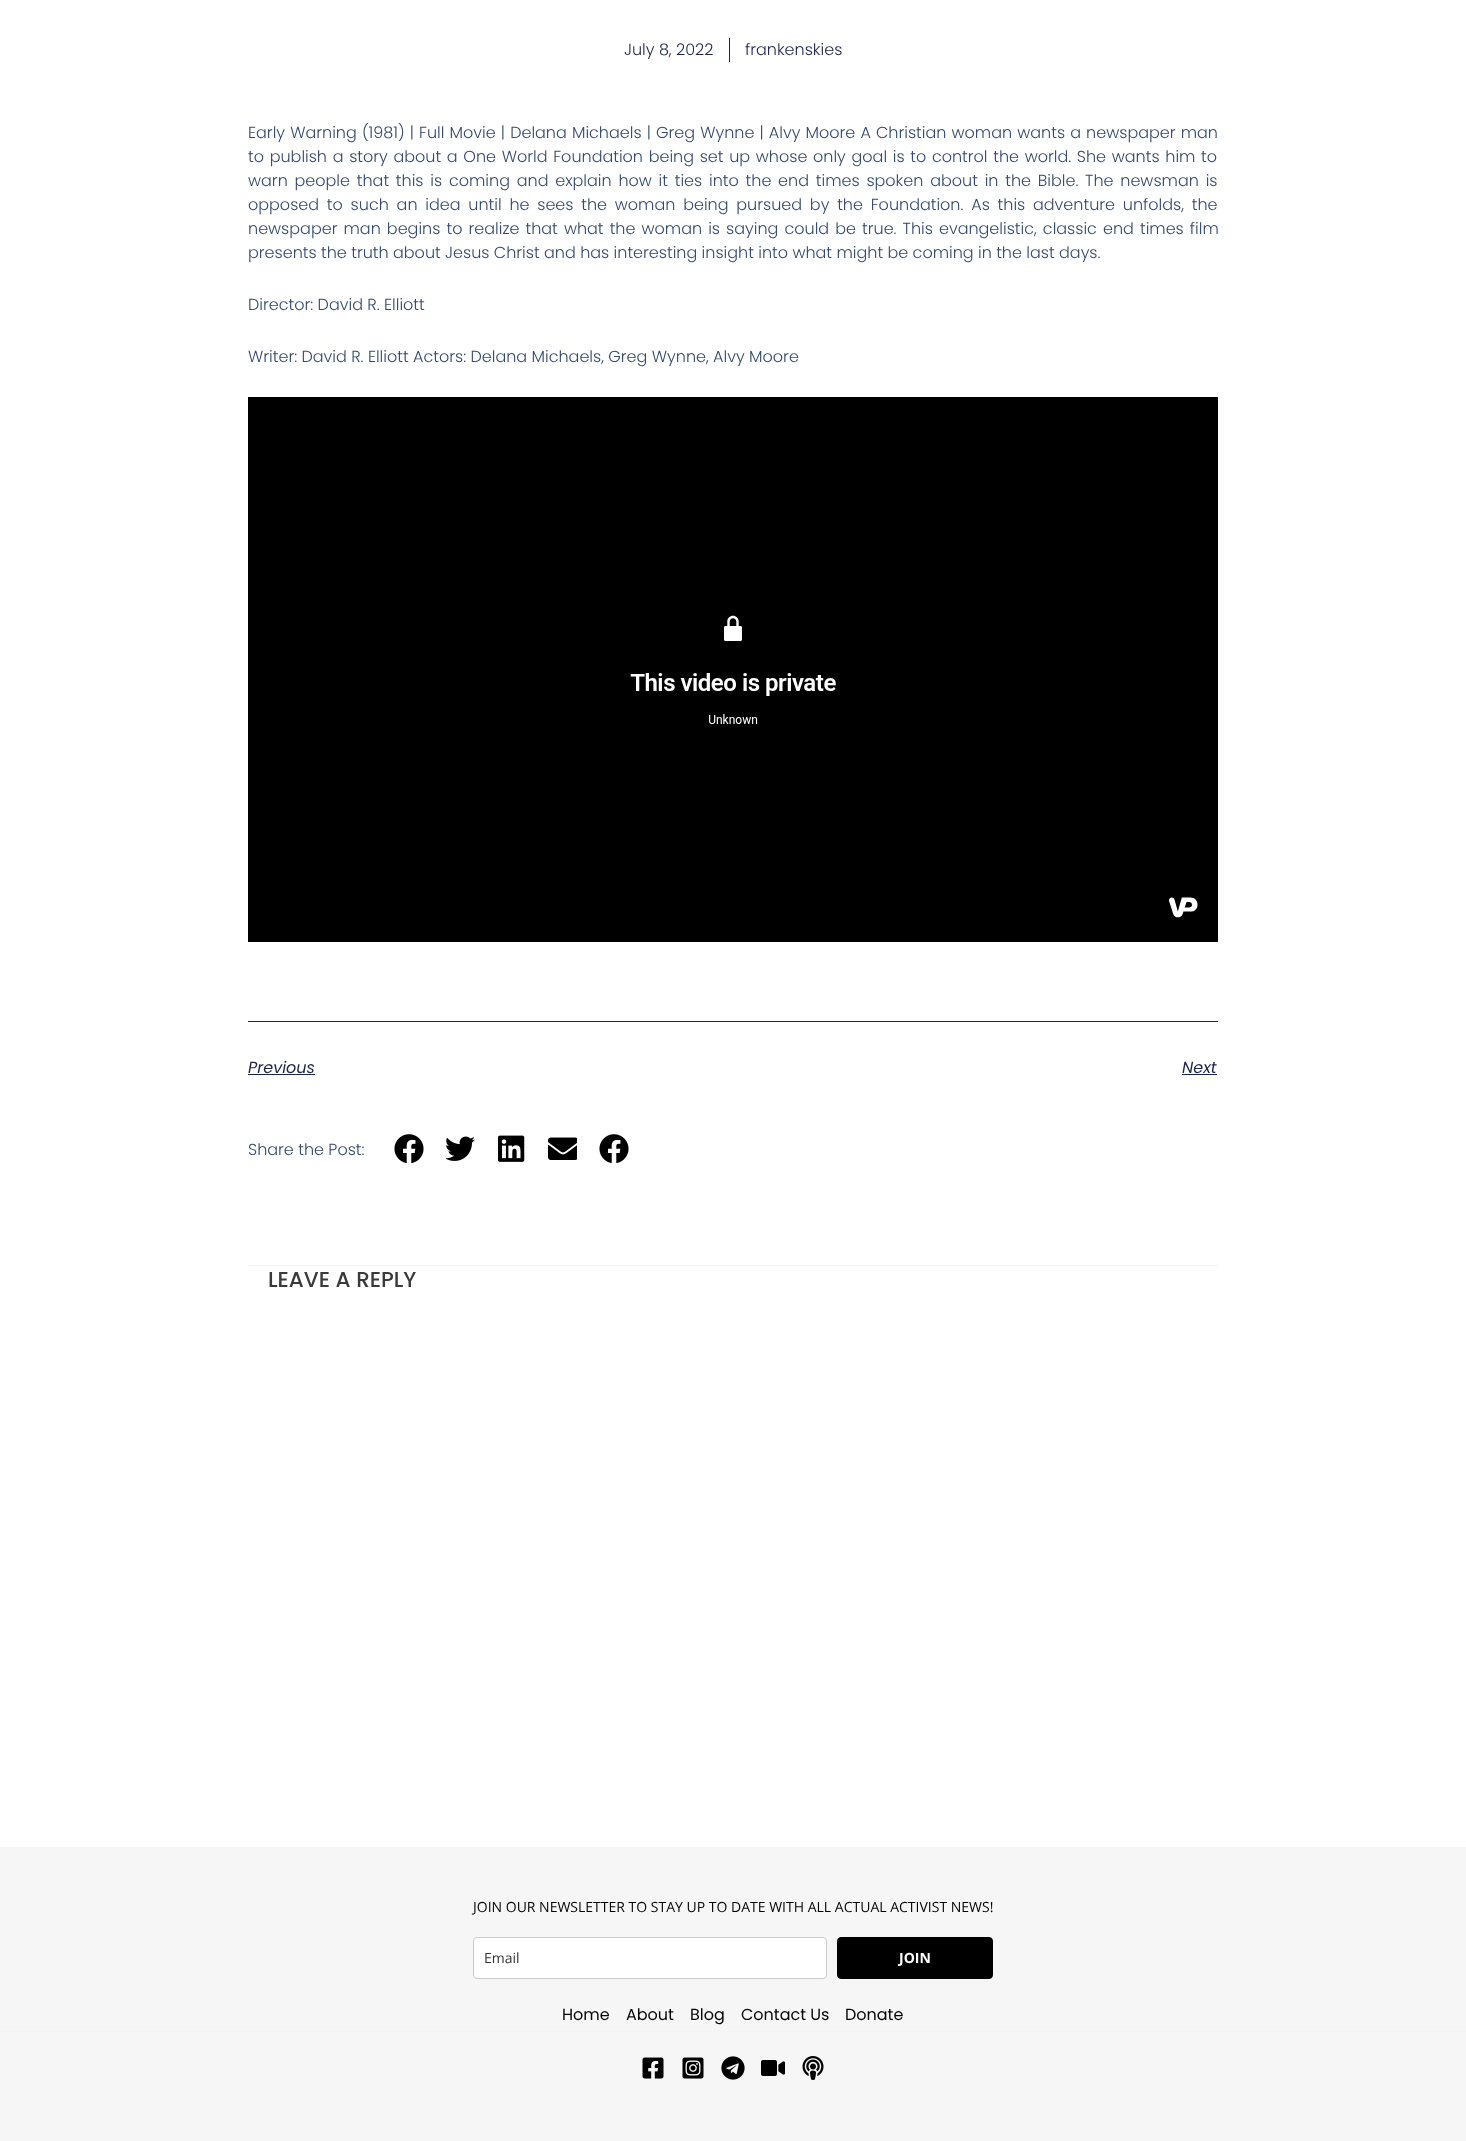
<svg xmlns="http://www.w3.org/2000/svg" width="1466" height="2141">
<style>
.a{font:300 16px Poppins;fill:#1c244b}
.b{font:300 16px Poppins;fill:#324a6d}
.c{font:italic 16px Poppins;fill:#1c244b}
.d{font:500 21.5px Poppins;fill:#3a3a3a}
.e{font:14px Open Sans;fill:#040404}
.f{font:14px Open Sans;fill:#333}
.g{font:bold 14px Open Sans;fill:#fff}
.h{font:16px Poppins;fill:#040404}
</style>
<rect width="100%" height="100%" fill="#fff"/>
<path fill="#1c244b" d="M729 38h1v24H729z"/>
<image href="1.png" x="248" y="397" width="970" height="545"/>
<path fill="#1c244b" d="M248 1021h970v1H248z"/>
<path fill="#1c244b" d="M248 1074h67v1H248z"/>
<path fill="#1c244b" d="M1182 1074h35v1H1182z"/>
<image href="2.png" x="394" y="1134" width="30" height="30"/>
<image href="3.png" x="446" y="1136" width="29" height="25"/>
<image href="4.png" x="498" y="1135" width="27" height="27"/>
<image href="5.png" x="548" y="1137" width="29" height="23"/>
<image href="2.png" x="599" y="1134" width="30" height="30"/>
<path fill="#f2f5f7" d="M248 1265h970v1H248z"/>
<path fill="#f6f6f6" d="M0 1847h1466v184H0z"/>
<rect fill="#fff" stroke="#ccc" x="473.5" y="1937.5" width="353" height="41" rx="3.5"/>
<rect fill="#000" stroke="#000" x="837.5" y="1937.5" width="155" height="41" rx="3.5"/>
<path fill="#f6f6f6" d="M0 2032h1466v109H0z"/>
<path fill="#f2f5f7" d="M0 2031h1466v1H0z"/>
<image href="6.png" x="642" y="2057" width="22" height="22"/>
<image href="7.png" x="682" y="2057" width="22" height="22"/>
<image href="8.png" x="721" y="2056" width="24" height="24"/>
<image href="9.png" x="761" y="2060" width="24" height="16"/>
<image href="10.png" x="802" y="2056" width="22" height="24"/>
<text class="a" x="624" y="55">July 8, 2022</text>
<text class="a" x="745" y="55">frankenskies</text>
<text class="b" x="248" y="138" word-spacing="0.75">Early Warning (1981) | Full Movie | Delana Michaels | Greg Wynne | Alvy Moore A Christian woman wants a newspaper man</text>
<text class="b" x="248" y="162" word-spacing="1.3">to publish a story about a One World Foundation being set up whose only goal is to control the world. She wants him to</text>
<text class="b" x="248" y="186" word-spacing="2.4">warn people that this is coming and explain how it ties into the end times spoken about in the Bible. The newsman is</text>
<text class="b" x="248" y="210" word-spacing="3.4">opposed to such an idea until he sees the woman being pursued by the Foundation. As this adventure unfolds, the</text>
<text class="b" x="248" y="234" word-spacing="1.7">newspaper man begins to realize that what the woman is saying could be true. This evangelistic, classic end times film</text>
<text class="b" x="248" y="258">presents the truth about Jesus Christ and has interesting insight into what might be coming in the last days.</text>
<text class="b" x="248" y="310">Director: David R. Elliott</text>
<text class="b" x="248" y="362">Writer: David R. Elliott Actors: Delana Michaels, Greg Wynne, Alvy Moore</text>
<text class="c" x="248" y="1073">Previous</text>
<text class="c" x="1182" y="1073">Next</text>
<text class="b" x="248" y="1155">Share the Post:</text>
<text class="d" x="268" y="1287">LEAVE A REPLY</text>
<text class="e" x="473" y="1912">JOIN OUR NEWSLETTER TO STAY UP TO DATE WITH ALL ACTUAL ACTIVIST NEWS!</text>
<text class="f" x="484" y="1963">Email</text>
<text class="g" x="899" y="1963">JOIN</text>
<text class="h" x="562" y="2020">Home</text>
<text class="h" x="626" y="2020">About</text>
<text class="h" x="690" y="2020">Blog</text>
<text class="h" x="741" y="2020">Contact Us</text>
<text class="h" x="845" y="2020">Donate</text>
</svg>
